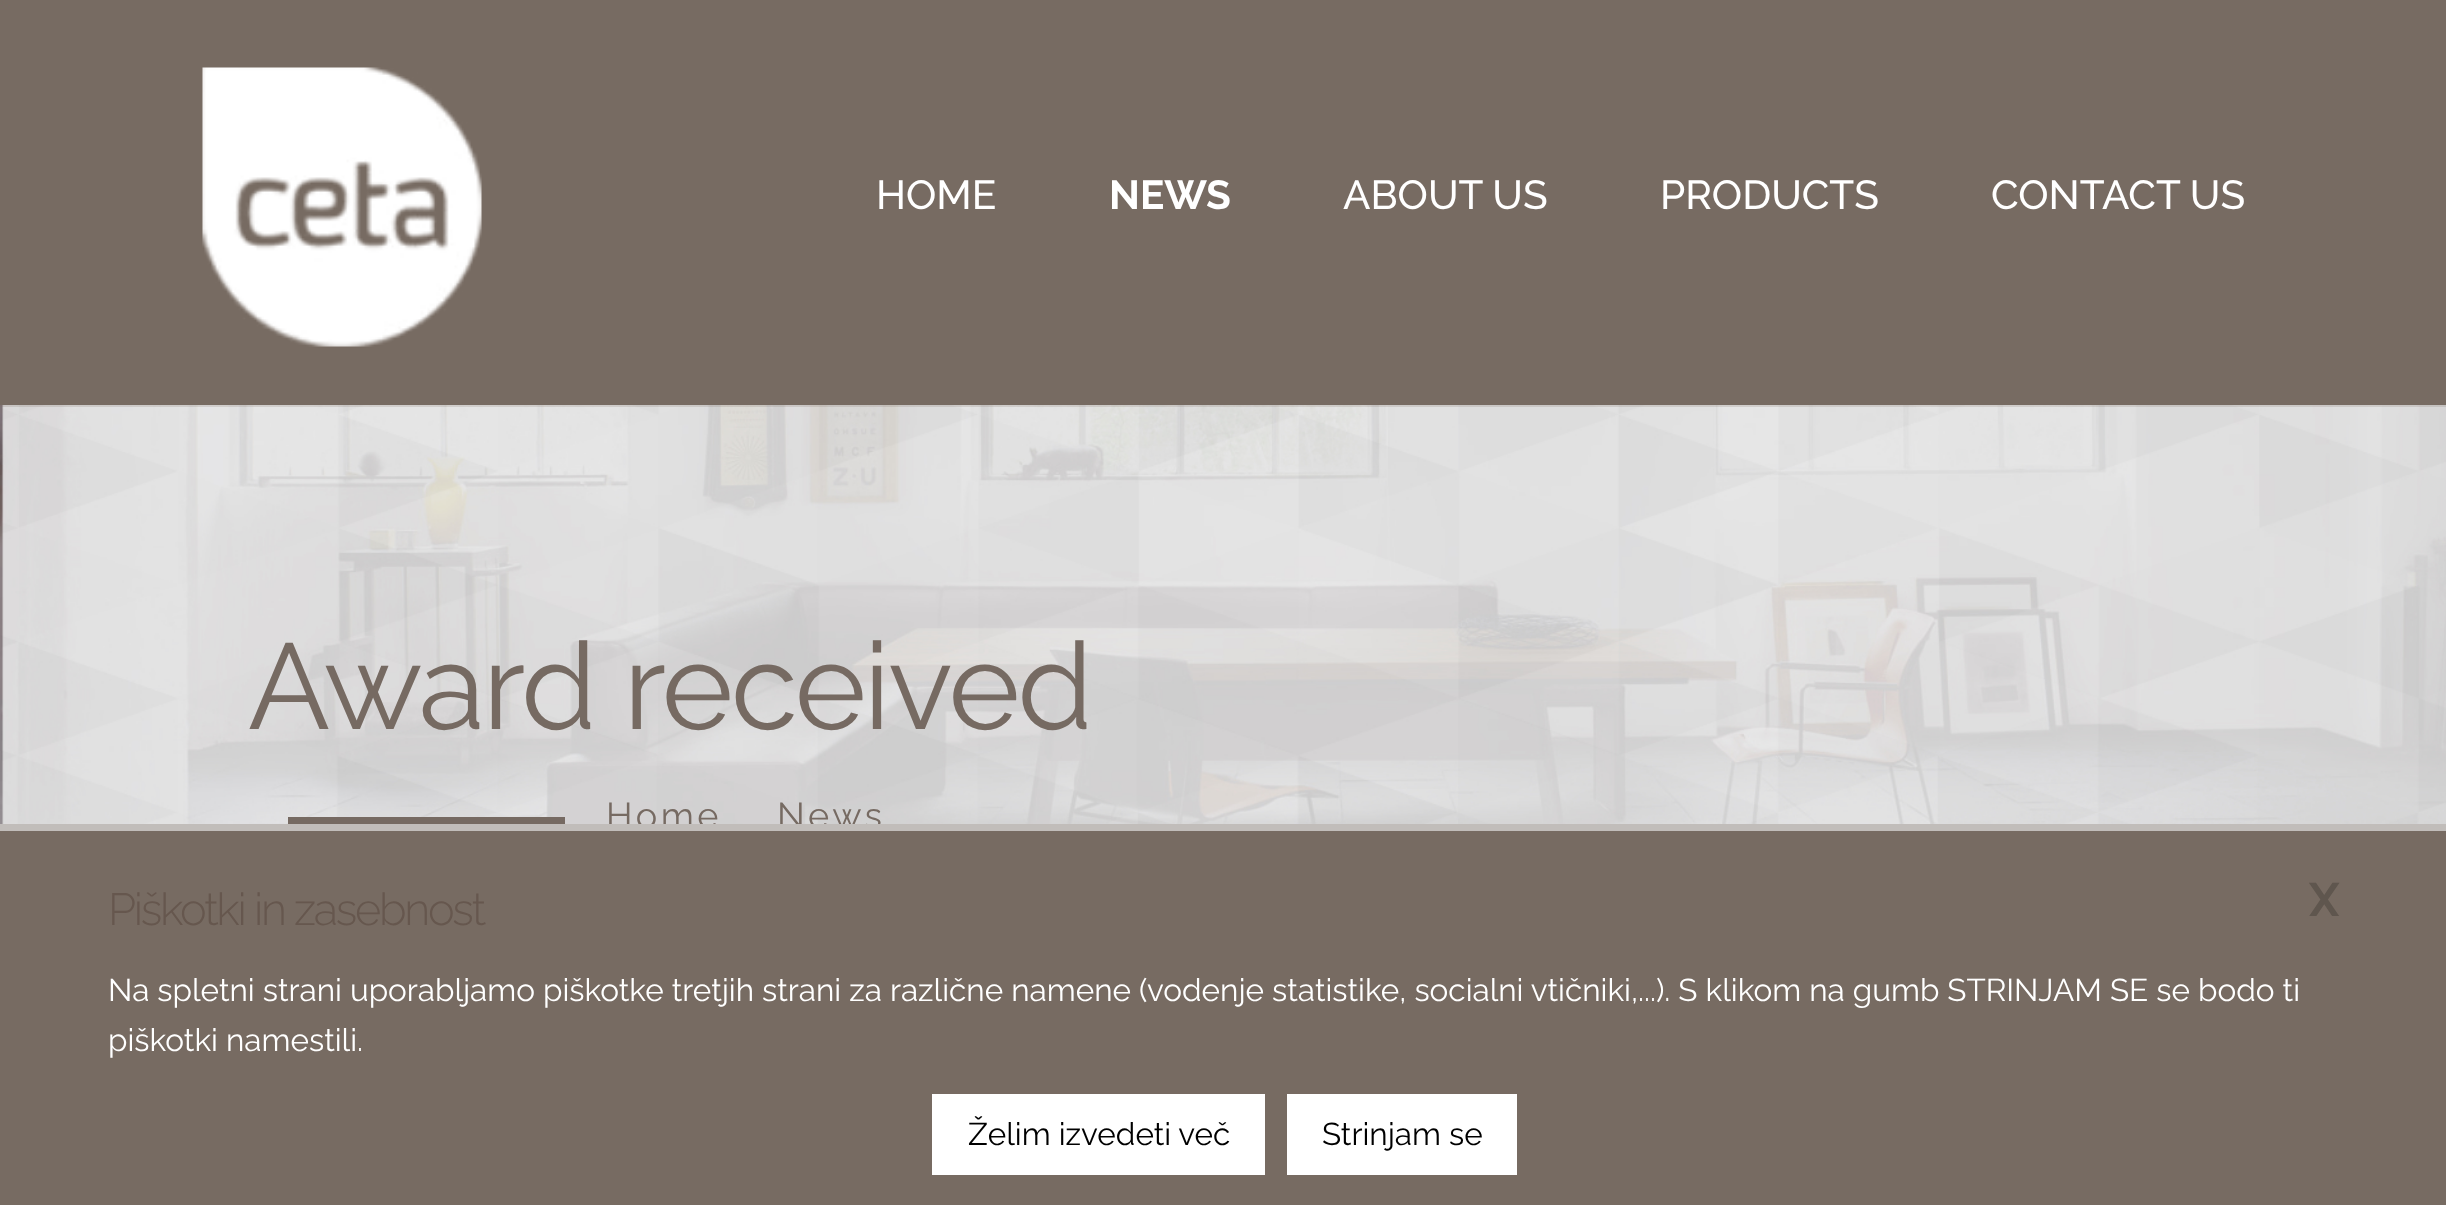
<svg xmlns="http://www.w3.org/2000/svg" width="2446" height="1205">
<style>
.a{font:500 40.5px Raleway;fill:#fff}
.b{font:bold 40.5px Raleway;fill:#fff}
.c{font:121.5px Raleway;letter-spacing:-2.25px;fill:#766a62}
.d{font:36px Raleway;letter-spacing:3.5px;fill:#766a62}
.e{font:300 45px Raleway;letter-spacing:-2.25px;fill:#66574e}
.f{font:bold 47px Raleway;fill:#5f564e}
.g{font:31.5px Raleway;fill:#fff}
.h{font:31.5px Raleway;fill:#000}
</style>
<rect width="100%" height="100%" fill="#fff"/>
<path fill="#776b62" d="M0 0h2446v405H0z"/>
<image href="1.png" x="202" y="67" width="280" height="280"/>
<image href="2.png" x="0" y="405" width="2446" height="419"/>
<path fill="#786b6230" d="M0 405h2446v2H0z"/>
<path fill="#766a62" d="M288 817h277v7H288z"/>
<path fill="#776b62" d="M0 831h2446v374H0z"/>
<path fill="#fff" d="M932 1094h333v81H932z"/>
<path fill="#fff" d="M1287 1094h230v81H1287z"/>
<text class="a" x="876" y="209">HOME</text>
<text class="b" x="1109" y="209">NEWS</text>
<text class="a" x="1343" y="209">ABOUT US</text>
<text class="a" x="1660" y="209">PRODUCTS</text>
<text class="a" x="1991" y="209">CONTACT US</text>
<text class="c" x="248" y="729">Award received</text>
<text class="d" x="606" y="828">Home</text>
<text class="d" x="777" y="828">News</text>
<path fill="#c1bdba" d="M0 824h2446v7H0z"/>
<text class="e" x="108" y="925">Piškotki in zasebnost</text>
<text class="f" x="2309" y="916">X</text>
<text class="g" x="108" y="1001">Na spletni strani uporabljamo piškotke tretjih strani za različne namene (vodenje statistike, socialni vtičniki,...). S klikom na gumb STRINJAM SE se bodo ti</text>
<text class="g" x="108" y="1051">piškotki namestili.</text>
<text class="h" x="968" y="1145">Želim izvedeti več</text>
<text class="h" x="1322" y="1145">Strinjam se</text>
</svg>
